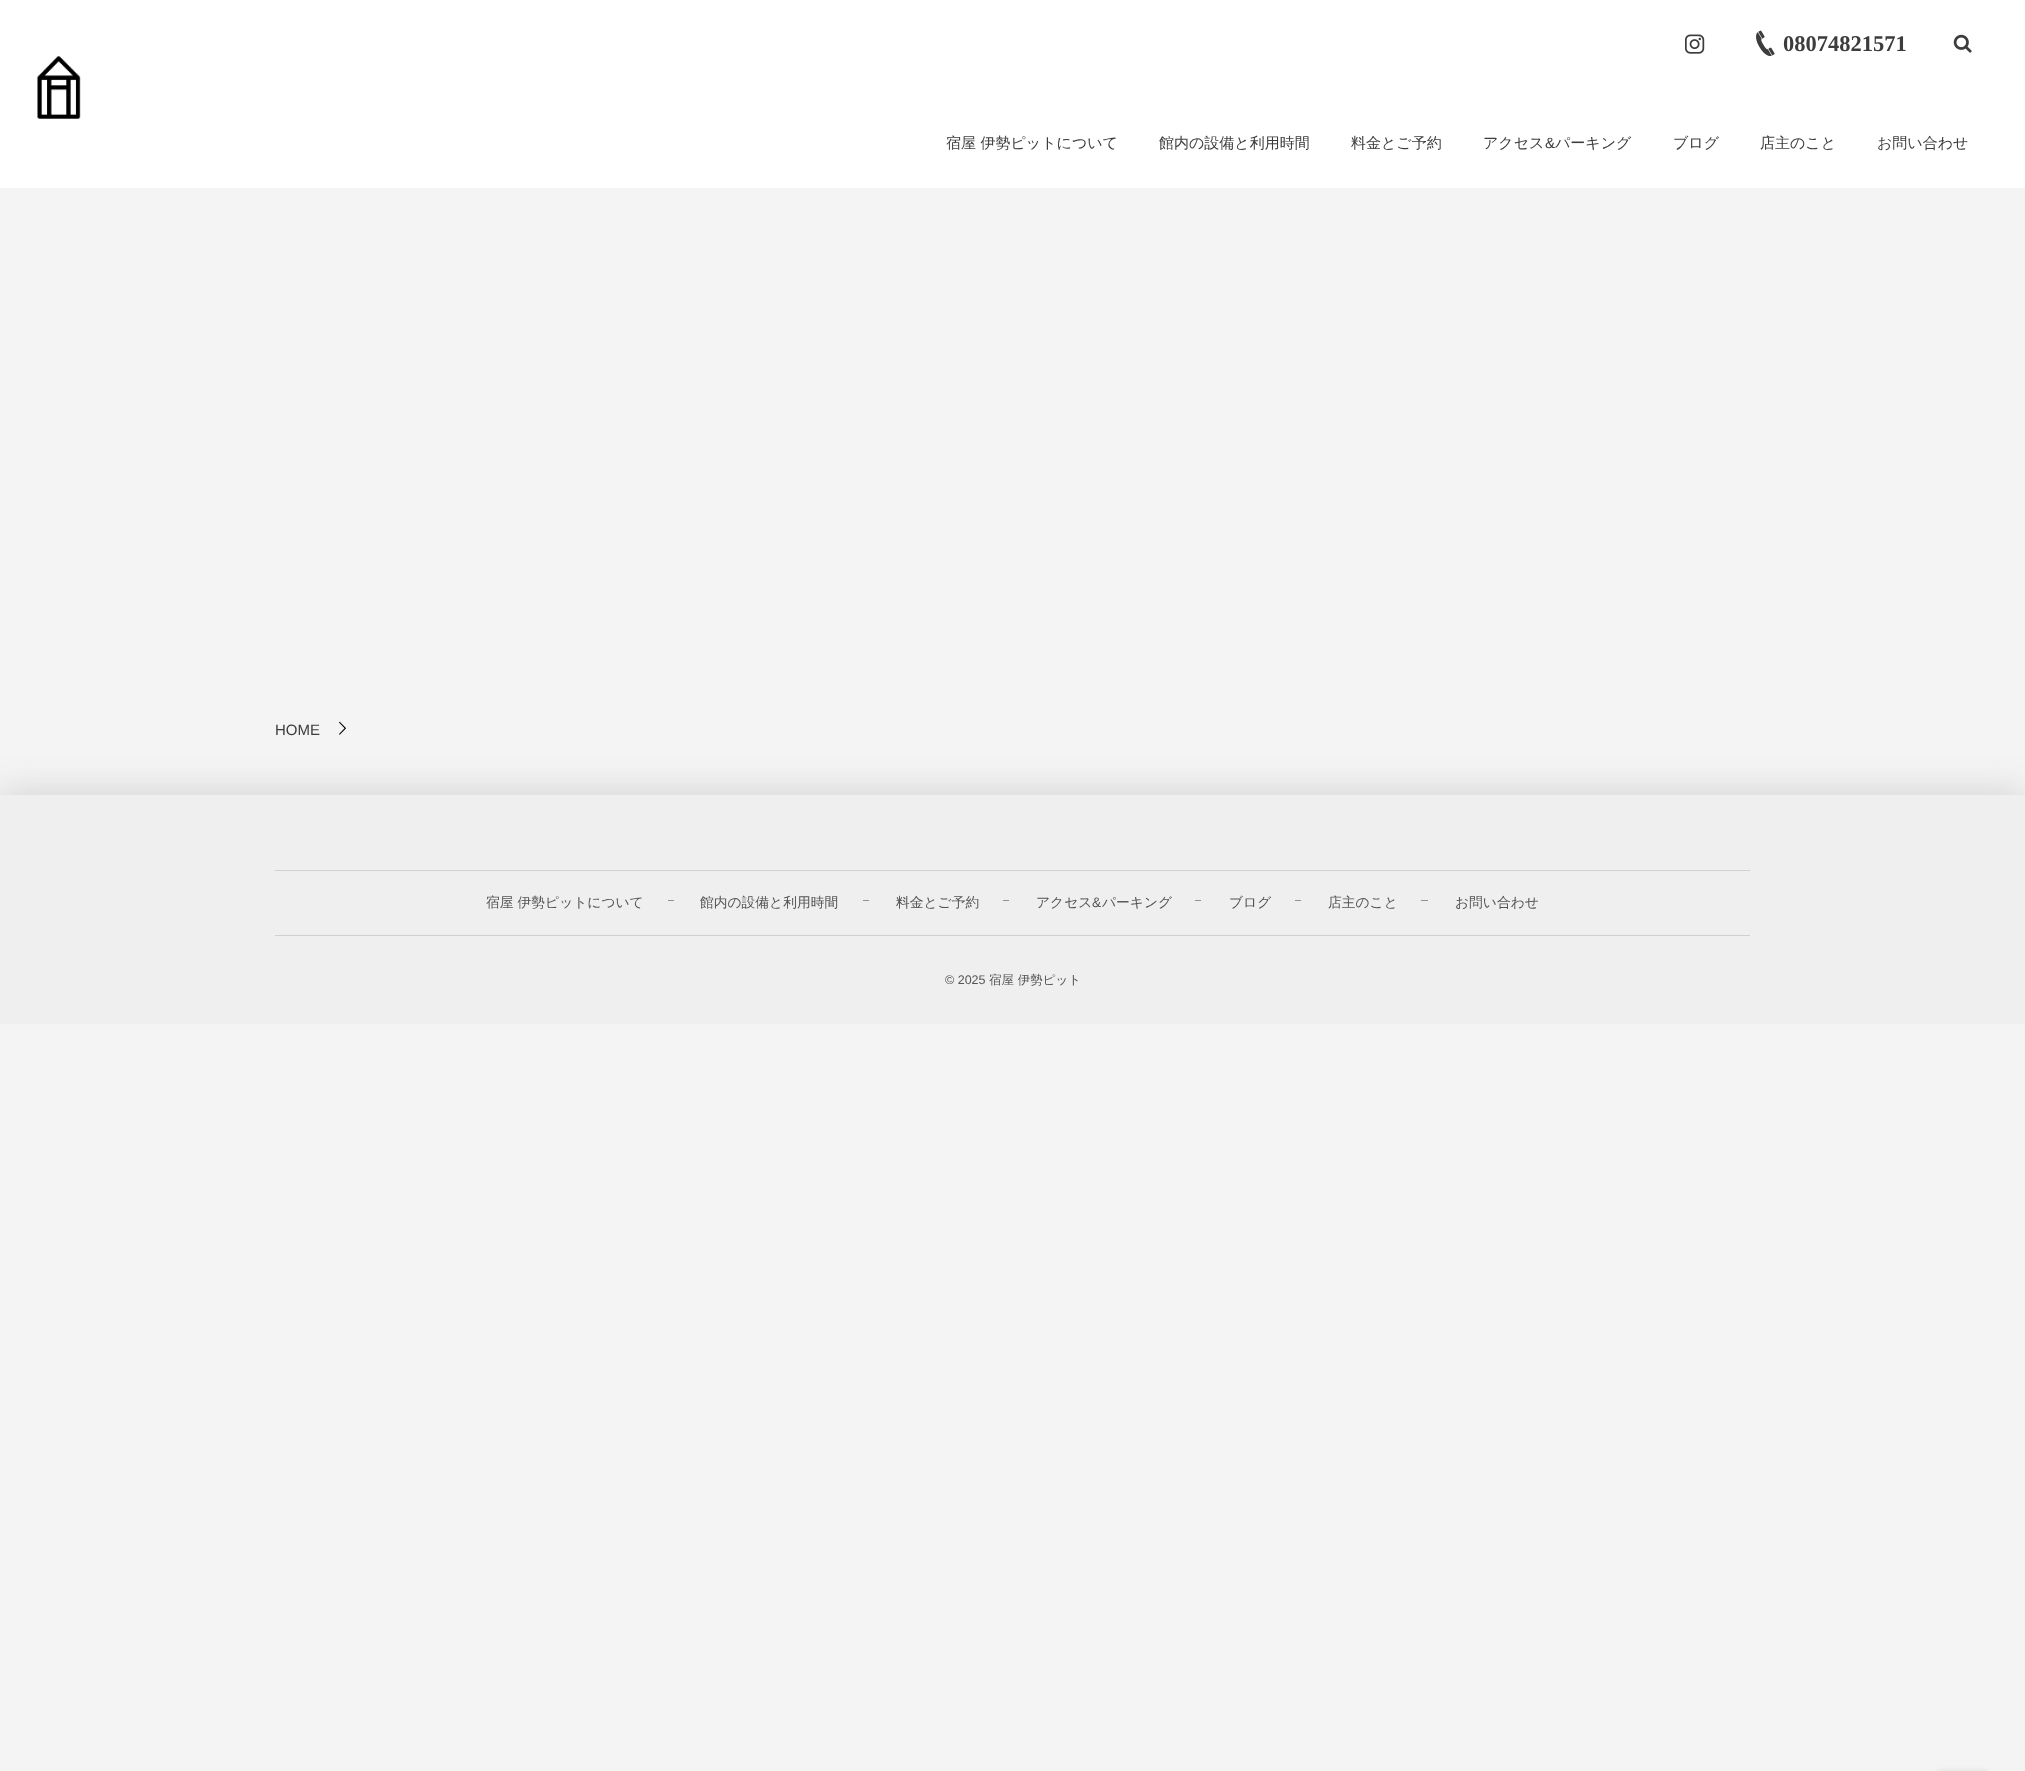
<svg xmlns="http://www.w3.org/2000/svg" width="2025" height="1771">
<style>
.a{font:bold 22.5px Liberation Serif;fill:#3c3c3c}
.b{font:500 15px WenQuanYi Zen Hei;fill:#3c3c3c}
.c{font:15px Liberation Sans;fill:#3c3c3c}
.d{font:500 13.75px WenQuanYi Zen Hei;fill:#545454}
.e{font:13.75px Liberation Sans;fill:#545454}
.f{font:12.5px Liberation Sans;fill:#545454}
.g{font:500 12.5px WenQuanYi Zen Hei;fill:#545454}
</style>
<defs>
<clipPath id="clip1"><path d="M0 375h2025v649H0z"/></clipPath>
</defs>
<rect width="100%" height="100%" fill="#f4f4f4"/>
<path fill="#fff" d="M0 0h2025v188H0z"/>
<image href="1.png" x="37" y="56" width="44" height="63"/>
<image href="2.png" x="1685" y="34" width="20" height="20"/>
<image href="3.png" x="1756" y="30" width="19" height="27"/>
<image href="4.png" x="1953" y="34" width="19" height="19"/>
<image href="5.png" x="339" y="721" width="7" height="14"/>
<g clip-path="url(#clip1)">
<path fill="#3c3c3c33" filter="blur(19px)" d="M0 795h2025v229H0z"/>
</g>
<path fill="#efefef" d="M0 795h2025v229H0z"/>
<path fill="#d0d0d0" d="M275 870h1475v1H275z"/>
<path fill="#929292" d="M668 900h6v1H668z"/>
<path fill="#929292" d="M863 900h6v1H863z"/>
<path fill="#929292" d="M1003 900h6v1H1003z"/>
<path fill="#929292" d="M1195 900h6v1H1195z"/>
<path fill="#929292" d="M1295 900h6v1H1295z"/>
<path fill="#929292" d="M1421 900h7v1H1421z"/>
<path fill="#d0d0d0" d="M275 935h1475v1H275z"/>
<path fill="#8686863d" filter="blur(2.5px)" d="M1938 1771h50v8H1938z"/>
<text class="a" x="1783" y="51">08074821571</text>
<text class="b" x="946" y="148">宿屋 伊勢ピットについて</text>
<text class="b" x="1159" y="148">館内の設備と利用時間</text>
<text class="b" x="1351" y="148">料金とご予約</text>
<text class="b" x="1483" y="148">アクセス</text>
<text class="c" x="1545" y="148">&amp;</text>
<text class="b" x="1555" y="148">パーキング</text>
<text class="b" x="1673" y="148">ブログ</text>
<text class="b" x="1760" y="148">店主のこと</text>
<text class="b" x="1877" y="148">お問い合わせ</text>
<text class="c" x="275" y="735">HOME</text>
<text class="d" x="486" y="907">宿屋 伊勢ピットについて</text>
<text class="d" x="700" y="907">館内の設備と利用時間</text>
<text class="d" x="896" y="907">料金とご予約</text>
<text class="d" x="1036" y="907">アクセス</text>
<text class="e" x="1092" y="907">&amp;</text>
<text class="d" x="1102" y="907">パーキング</text>
<text class="d" x="1229" y="907">ブログ</text>
<text class="d" x="1328" y="907">店主のこと</text>
<text class="d" x="1455" y="907">お問い合わせ</text>
<text class="f" x="945" y="984">© 2025</text>
<text class="g" x="989" y="984">宿屋 伊勢ピット</text>
</svg>
